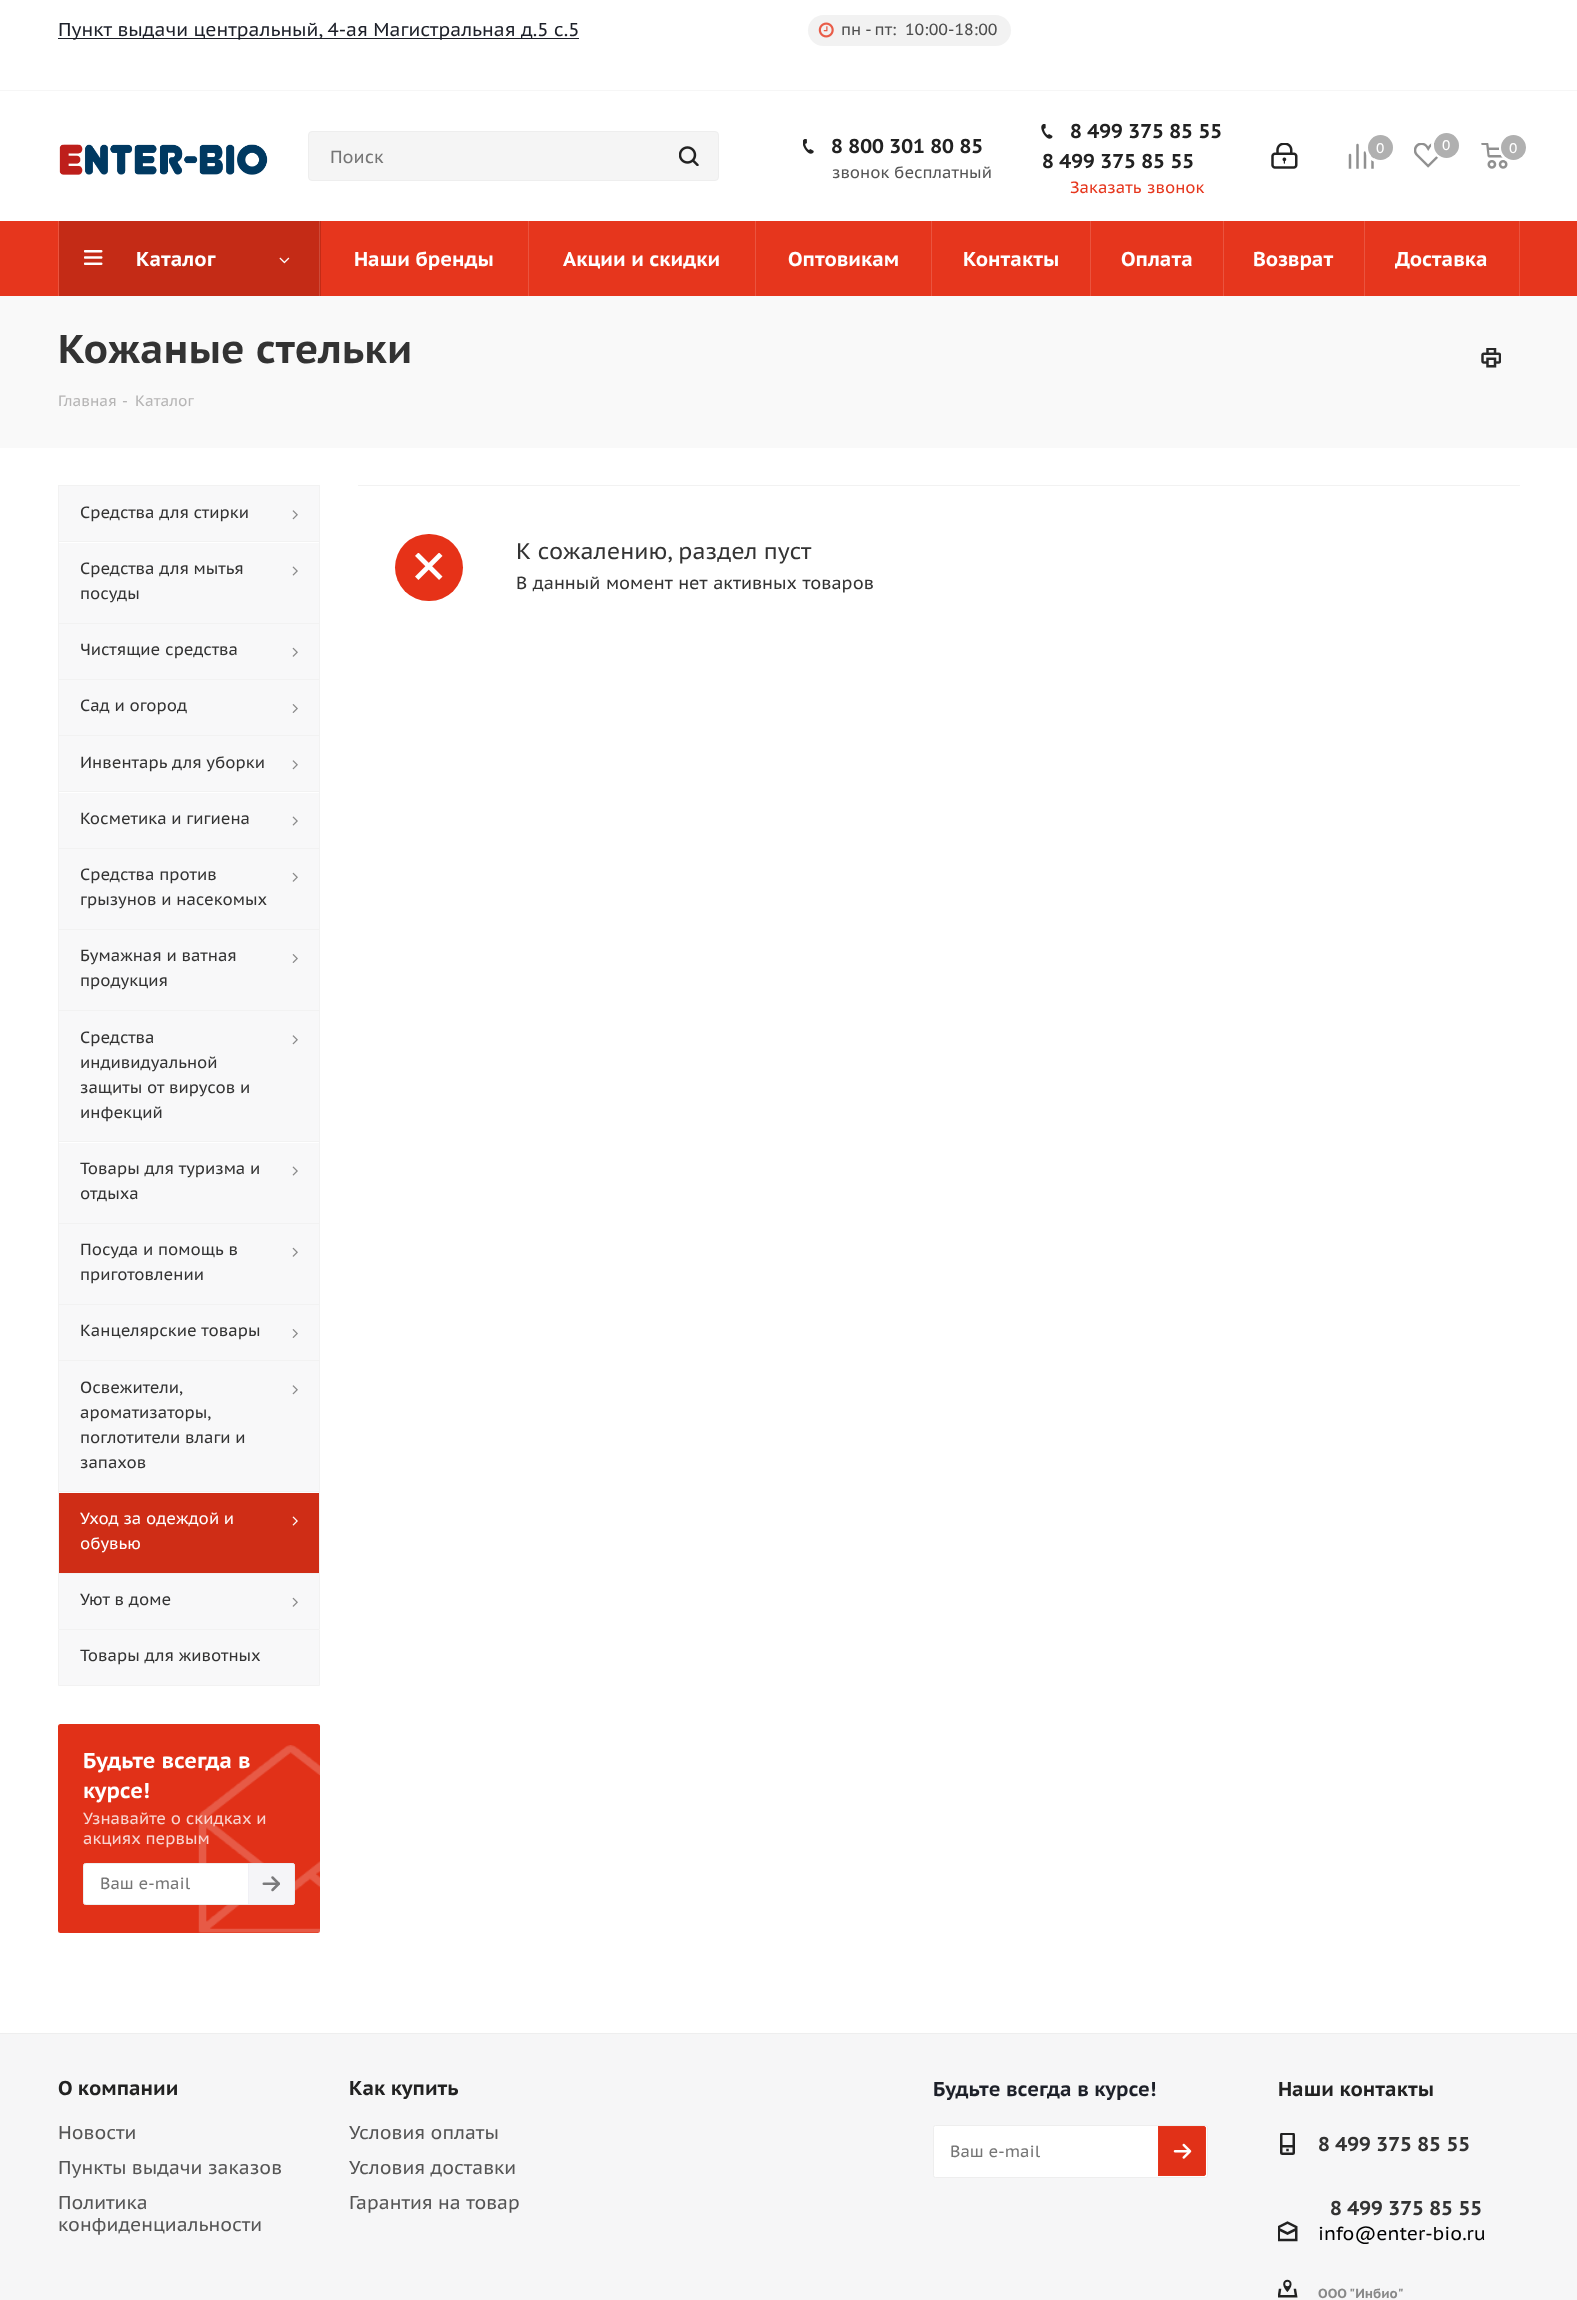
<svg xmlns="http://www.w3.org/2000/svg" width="1577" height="2300">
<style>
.a{font:18.75px PT Sans Caption;fill:#1d2029}
.b{font:16.25px PT Sans Caption;fill:#4e4e4e}
.c{font:17.5px PT Sans Caption;fill:#757575}
.d{font:bold 20px PT Sans Caption;fill:#222}
.e{font:16.25px PT Sans Caption;fill:#555}
.f{font:16.25px PT Sans Caption;fill:#e6361d}
.g{font:14px PT Sans Caption;fill:#fff}
.h{font:bold 20px PT Sans Caption;fill:#fff}
.i{font:bold 40px PT Sans Caption;fill:#333}
.j{font:15px PT Sans Caption;fill:#b6b5b5}
.k{font:16.25px PT Sans Caption;fill:#333}
.l{font:16.25px PT Sans Caption;fill:#fff}
.m{font:bold 21.5px PT Sans Caption;fill:#fff}
.n{font:16.25px PT Sans Caption;fill:#f9d6d1}
.o{font:16.25px PT Sans Caption;fill:#757575}
.p{font:22.5px PT Sans Caption;fill:#333}
.q{font:17.5px PT Sans Caption;fill:#333}
.r{font:18.75px PT Sans Caption;fill:#555}
.s{font:bold 20px PT Sans Caption;fill:#1d2029}
.t{font:bold 20px PT Sans Caption;fill:#333}
.u{font:18.75px PT Sans Caption;fill:#000}
.v{font:bold 13.25px PT Sans Caption;fill:#898989}
</style>
<rect width="100%" height="100%" fill="#fff"/>
<path fill="#f6f6f6" d="M0 90h1577v1H0z"/>
<path fill="#1d2029" d="M58 38h521v1H58z"/>
<rect fill="#f2f2f2" x="808" y="15" width="203" height="31" rx="15.5"/>
<image href="1.png" x="818" y="22" width="16" height="16"/>
<image href="2.png" x="59" y="144" width="209" height="31"/>
<rect fill="#f5f5f5" stroke="#eee" x="308.5" y="131.5" width="410" height="49" rx="3.5"/>
<image href="3.png" x="679" y="146" width="20" height="20"/>
<image href="4.png" x="803" y="139" width="11" height="15"/>
<image href="5.png" x="1041" y="124" width="12" height="15"/>
<image href="6.png" x="1271" y="143" width="27" height="26"/>
<image href="7.png" x="1348" y="143" width="26" height="26"/>
<circle fill="none" stroke="#fff" stroke-width="3" cx="1380" cy="148" r="13.5"/>
<circle fill="#b0b0b0" cx="1380.5" cy="147.5" r="12.5"/>
<image href="8.png" x="1414" y="143" width="26" height="25"/>
<circle fill="none" stroke="#fff" stroke-width="3" cx="1446" cy="145" r="13.5"/>
<circle fill="#b0b0b0" cx="1446.5" cy="145.5" r="12.5"/>
<image href="9.png" x="1481" y="143" width="27" height="26"/>
<circle fill="none" stroke="#fff" stroke-width="3" cx="1514" cy="148" r="13.5"/>
<circle fill="none" stroke="#fff" stroke-width="3" cx="1514" cy="148" r="13.5"/>
<circle fill="#b0b0b0" cx="1513.5" cy="147.5" r="12.5"/>
<path fill="#e6361d" d="M0 221h1577v75H0z"/>
<path fill="#ea543f" d="M58 221h1v75H58z"/>
<path fill="#c42b16" d="M59 221h262v75H59z"/>
<path fill="#cd4b39" d="M319 221h1v75H319z"/>
<image href="10.png" x="84" y="250" width="19" height="15"/>
<image href="11.png" x="279" y="257" width="11" height="7"/>
<path fill="#ea543f" d="M528 221h1v75H528z"/>
<path fill="#ea543f" d="M755 221h1v75H755z"/>
<path fill="#ea543f" d="M931 221h1v75H931z"/>
<path fill="#ea543f" d="M1090 221h1v75H1090z"/>
<path fill="#ea543f" d="M1223 221h1v75H1223z"/>
<path fill="#ea543f" d="M1364 221h1v75H1364z"/>
<path fill="#ea543f" d="M1519 221h1v75H1519z"/>
<path fill="#f9f9f9" d="M0 296h1577v152H0z"/>
<image href="12.png" x="1481" y="348" width="20" height="20"/>
<path fill="#f8f8f9" d="M59 486h260v55H59z"/>
<path fill="#f2f2f2" d="M58 485h262v1H58z"/>
<path fill="#f2f2f2" d="M319 485h1v56H319z"/>
<path fill="#f2f2f2" d="M58 485h1v56H58z"/>
<image href="13.png" x="292" y="510" width="6" height="10"/>
<path fill="#f8f8f9" d="M59 543h260v80H59z"/>
<path fill="#f2f2f2" d="M58 541h262v1H58z"/>
<path fill="#f2f2f2" d="M319 541h1v82H319z"/>
<path fill="#f2f2f2" d="M58 541h1v82H58z"/>
<image href="14.png" x="292" y="566" width="6" height="10"/>
<path fill="#f8f8f9" d="M59 624h260v55H59z"/>
<path fill="#f2f2f2" d="M58 623h262v1H58z"/>
<path fill="#f2f2f2" d="M319 623h1v56H319z"/>
<path fill="#f2f2f2" d="M58 623h1v56H58z"/>
<image href="15.png" x="292" y="647" width="6" height="10"/>
<path fill="#f8f8f9" d="M59 680h260v55H59z"/>
<path fill="#f2f2f2" d="M58 679h262v1H58z"/>
<path fill="#f2f2f2" d="M319 679h1v56H319z"/>
<path fill="#f2f2f2" d="M58 679h1v56H58z"/>
<image href="16.png" x="292" y="704" width="6" height="9"/>
<path fill="#f8f8f9" d="M59 736h260v55H59z"/>
<path fill="#f2f2f2" d="M58 735h262v1H58z"/>
<path fill="#f2f2f2" d="M319 735h1v56H319z"/>
<path fill="#f2f2f2" d="M58 735h1v56H58z"/>
<image href="13.png" x="292" y="760" width="6" height="10"/>
<path fill="#f8f8f9" d="M59 793h260v55H59z"/>
<path fill="#f2f2f2" d="M58 791h262v1H58z"/>
<path fill="#f2f2f2" d="M319 791h1v57H319z"/>
<path fill="#f2f2f2" d="M58 791h1v57H58z"/>
<image href="14.png" x="292" y="816" width="6" height="10"/>
<path fill="#f8f8f9" d="M59 849h260v80H59z"/>
<path fill="#f2f2f2" d="M58 848h262v1H58z"/>
<path fill="#f2f2f2" d="M319 848h1v81H319z"/>
<path fill="#f2f2f2" d="M58 848h1v81H58z"/>
<image href="15.png" x="292" y="872" width="6" height="10"/>
<path fill="#f8f8f9" d="M59 930h260v80H59z"/>
<path fill="#f2f2f2" d="M58 929h262v1H58z"/>
<path fill="#f2f2f2" d="M319 929h1v81H319z"/>
<path fill="#f2f2f2" d="M58 929h1v81H58z"/>
<image href="16.png" x="292" y="954" width="6" height="9"/>
<path fill="#f8f8f9" d="M59 1011h260v130H59z"/>
<path fill="#f2f2f2" d="M58 1010h262v1H58z"/>
<path fill="#f2f2f2" d="M319 1010h1v131H319z"/>
<path fill="#f2f2f2" d="M58 1010h1v131H58z"/>
<image href="13.png" x="292" y="1035" width="6" height="10"/>
<path fill="#f8f8f9" d="M59 1143h260v80H59z"/>
<path fill="#f2f2f2" d="M58 1141h262v1H58z"/>
<path fill="#f2f2f2" d="M319 1141h1v82H319z"/>
<path fill="#f2f2f2" d="M58 1141h1v82H58z"/>
<image href="14.png" x="292" y="1166" width="6" height="10"/>
<path fill="#f8f8f9" d="M59 1224h260v80H59z"/>
<path fill="#f2f2f2" d="M58 1223h262v1H58z"/>
<path fill="#f2f2f2" d="M319 1223h1v81H319z"/>
<path fill="#f2f2f2" d="M58 1223h1v81H58z"/>
<image href="15.png" x="292" y="1247" width="6" height="10"/>
<path fill="#f8f8f9" d="M59 1305h260v55H59z"/>
<path fill="#f2f2f2" d="M58 1304h262v1H58z"/>
<path fill="#f2f2f2" d="M319 1304h1v56H319z"/>
<path fill="#f2f2f2" d="M58 1304h1v56H58z"/>
<image href="16.png" x="292" y="1329" width="6" height="9"/>
<path fill="#f8f8f9" d="M59 1361h260v130H59z"/>
<path fill="#f2f2f2" d="M58 1360h262v1H58z"/>
<path fill="#f2f2f2" d="M319 1360h1v131H319z"/>
<path fill="#f2f2f2" d="M58 1360h1v131H58z"/>
<image href="13.png" x="292" y="1385" width="6" height="10"/>
<path fill="#cf2d16" d="M59 1493h260v80H59z"/>
<path fill="#f2f2f2" d="M58 1491h262v1H58z"/>
<path fill="#f2f2f2" d="M319 1491h1v82H319z"/>
<path fill="#f2f2f2" d="M58 1491h1v82H58z"/>
<image href="17.png" x="292" y="1516" width="6" height="10"/>
<path fill="#f8f8f9" d="M59 1574h260v55H59z"/>
<path fill="#f2f2f2" d="M58 1573h262v1H58z"/>
<path fill="#f2f2f2" d="M319 1573h1v56H319z"/>
<path fill="#f2f2f2" d="M58 1573h1v56H58z"/>
<image href="15.png" x="292" y="1597" width="6" height="10"/>
<path fill="#f8f8f9" stroke="#f2f2f2" d="M58.5 1629.5h261v56H58.5z"/>
<rect fill="#e13118" x="58" y="1724" width="262" height="209" rx="2.5"/>
<path fill="#f2f2f2" d="M358 485h1162v1H358z"/>
<rect fill="#e63218" x="395" y="534" width="68" height="67" rx="33.5"/>
<image href="20.png" x="415" y="553" width="28" height="27"/>
<path fill="#eee" d="M0 2033h1577v1H0z"/>
<path fill="#f6f6f7" d="M0 2034h1577v266H0z"/>
<rect fill="#fff" stroke="#eee" x="933.5" y="2125.5" width="274" height="52" rx="2"/>
<path fill="#e13118" d="M1158 2126h45.5c1.5 0 2.5 1 2.5 2.5v45c0 1.5-1 2.5-2.5 2.5h-45.5z"/>
<image href="21.png" x="1173" y="2143" width="19" height="16"/>
<path fill="none" stroke="#e6361d" d="M1158.5 2126.5h45c1 0 2 1 2 2v45c0 1-1 2-2 2h-45z"/>
<image href="22.png" x="1280" y="2133" width="15" height="22"/>
<image href="23.png" x="1278" y="2221" width="20" height="21"/>
<image href="24.png" x="1278" y="2279" width="20" height="19"/>
<text class="a" x="58" y="36">Пункт выдачи центральный, 4-ая Магистральная д.5 с.5</text>
<text class="b" xml:space="preserve" x="841" y="35" word-spacing="-0.5">пн - пт:  10:00-18:00</text>
<text class="c" x="330" y="163">Поиск</text>
<text class="d" x="831" y="153">8 800 301 80 85</text>
<text class="e" x="832" y="178">звонок бесплатный</text>
<text class="d" x="1070" y="138">8 499 375 85 55</text>
<text class="d" x="1042" y="168">8 499 375 85 55</text>
<text class="f" x="1070" y="193" word-spacing="1">Заказать звонок</text>
<text class="g" x="1376" y="153">0</text>
<text class="g" x="1442" y="150">0</text>
<text class="g" x="1509" y="153">0</text>
<text class="h" x="136" y="266">Каталог</text>
<text class="h" x="354" y="266">Наши бренды</text>
<text class="h" x="563" y="266">Акции и скидки</text>
<text class="h" x="788" y="266">Оптовикам</text>
<text class="h" x="963" y="266">Контакты</text>
<text class="h" x="1121" y="266">Оплата</text>
<text class="h" x="1253" y="266">Возврат</text>
<text class="h" x="1395" y="266">Доставка</text>
<text class="i" x="58" y="363">Кожаные стельки</text>
<text class="j" x="58" y="406">Главная</text>
<text class="j" x="122" y="406">-</text>
<text class="j" x="135" y="406">Каталог</text>
<text class="k" x="80" y="518">Средства для стирки</text>
<text class="k" x="80" y="574">Средства для мытья</text>
<text class="k" x="80" y="599">посуды</text>
<text class="k" x="80" y="655">Чистящие средства</text>
<text class="k" x="80" y="711">Сад и огород</text>
<text class="k" x="80" y="768">Инвентарь для уборки</text>
<text class="k" x="80" y="824">Косметика и гигиена</text>
<text class="k" x="80" y="880">Средства против</text>
<text class="k" x="80" y="905">грызунов и насекомых</text>
<text class="k" x="80" y="961">Бумажная и ватная</text>
<text class="k" x="80" y="986">продукция</text>
<text class="k" x="80" y="1043">Средства</text>
<text class="k" x="80" y="1068">индивидуальной</text>
<text class="k" x="80" y="1093">защиты от вирусов и</text>
<text class="k" x="80" y="1118">инфекций</text>
<text class="k" x="80" y="1174">Товары для туризма и</text>
<text class="k" x="80" y="1199">отдыха</text>
<text class="k" x="80" y="1255">Посуда и помощь в</text>
<text class="k" x="80" y="1280">приготовлении</text>
<text class="k" x="80" y="1336">Канцелярские товары</text>
<text class="k" x="80" y="1393">Освежители,</text>
<text class="k" x="80" y="1418">ароматизаторы,</text>
<text class="k" x="80" y="1443">поглотители влаги и</text>
<text class="k" x="80" y="1468">запахов</text>
<text class="l" x="80" y="1524">Уход за одеждой и</text>
<text class="l" x="80" y="1549">обувью</text>
<text class="k" x="80" y="1605">Уют в доме</text>
<text class="k" x="80" y="1661">Товары для животных</text>
<text class="m" x="83" y="1768">Будьте всегда в</text>
<image href="18.png" x="198" y="1745" width="122" height="188"/>
<text class="m" x="83" y="1798">курсе!</text>
<text class="n" x="83" y="1824">Узнавайте о скидках и</text>
<text class="n" x="83" y="1844">акциях первым</text>
<rect fill="#fff" stroke="#eee" x="83.5" y="1863.5" width="211" height="41" rx="2"/>
<text class="o" x="100" y="1889">Ваш e-mail</text>
<path fill="#ececf280" d="M248 1863h44.5c1.5 0 2.5 1 2.5 2.5v37c0 1.5-1 2.5-2.5 2.5h-44.5z"/>
<image href="19.png" x="262" y="1876" width="18" height="16"/>
<path fill="none" stroke="#ececf280" d="M248.5 1863.5h44c1 0 2 1 2 2v37c0 1-1 2-2 2h-44z"/>
<text class="p" x="516" y="559">К сожалению, раздел пуст</text>
<text class="q" x="516" y="589" word-spacing="0.5">В данный момент нет активных товаров</text>
<text class="d" x="58" y="2095">О компании</text>
<text class="r" x="58" y="2139">Новости</text>
<text class="r" x="58" y="2174">Пункты выдачи заказов</text>
<text class="r" x="58" y="2209">Политика</text>
<text class="r" x="58" y="2231">конфиденциальности</text>
<text class="d" x="349" y="2095">Как купить</text>
<text class="r" x="349" y="2139">Условия оплаты</text>
<text class="r" x="349" y="2174">Условия доставки</text>
<text class="r" x="349" y="2209">Гарантия на товар</text>
<text class="s" x="933" y="2096">Будьте всегда в курсе!</text>
<text class="o" x="950" y="2157">Ваш e-mail</text>
<text class="d" x="1278" y="2096">Наши контакты</text>
<text class="t" x="1318" y="2151">8 499 375 85 55</text>
<text class="t" x="1330" y="2215">8 499 375 85 55</text>
<text class="u" x="1318" y="2240">info@enter-bio.ru</text>
<text class="v" x="1318" y="2298" word-spacing="-1">ООО "Инбио"</text>
</svg>
